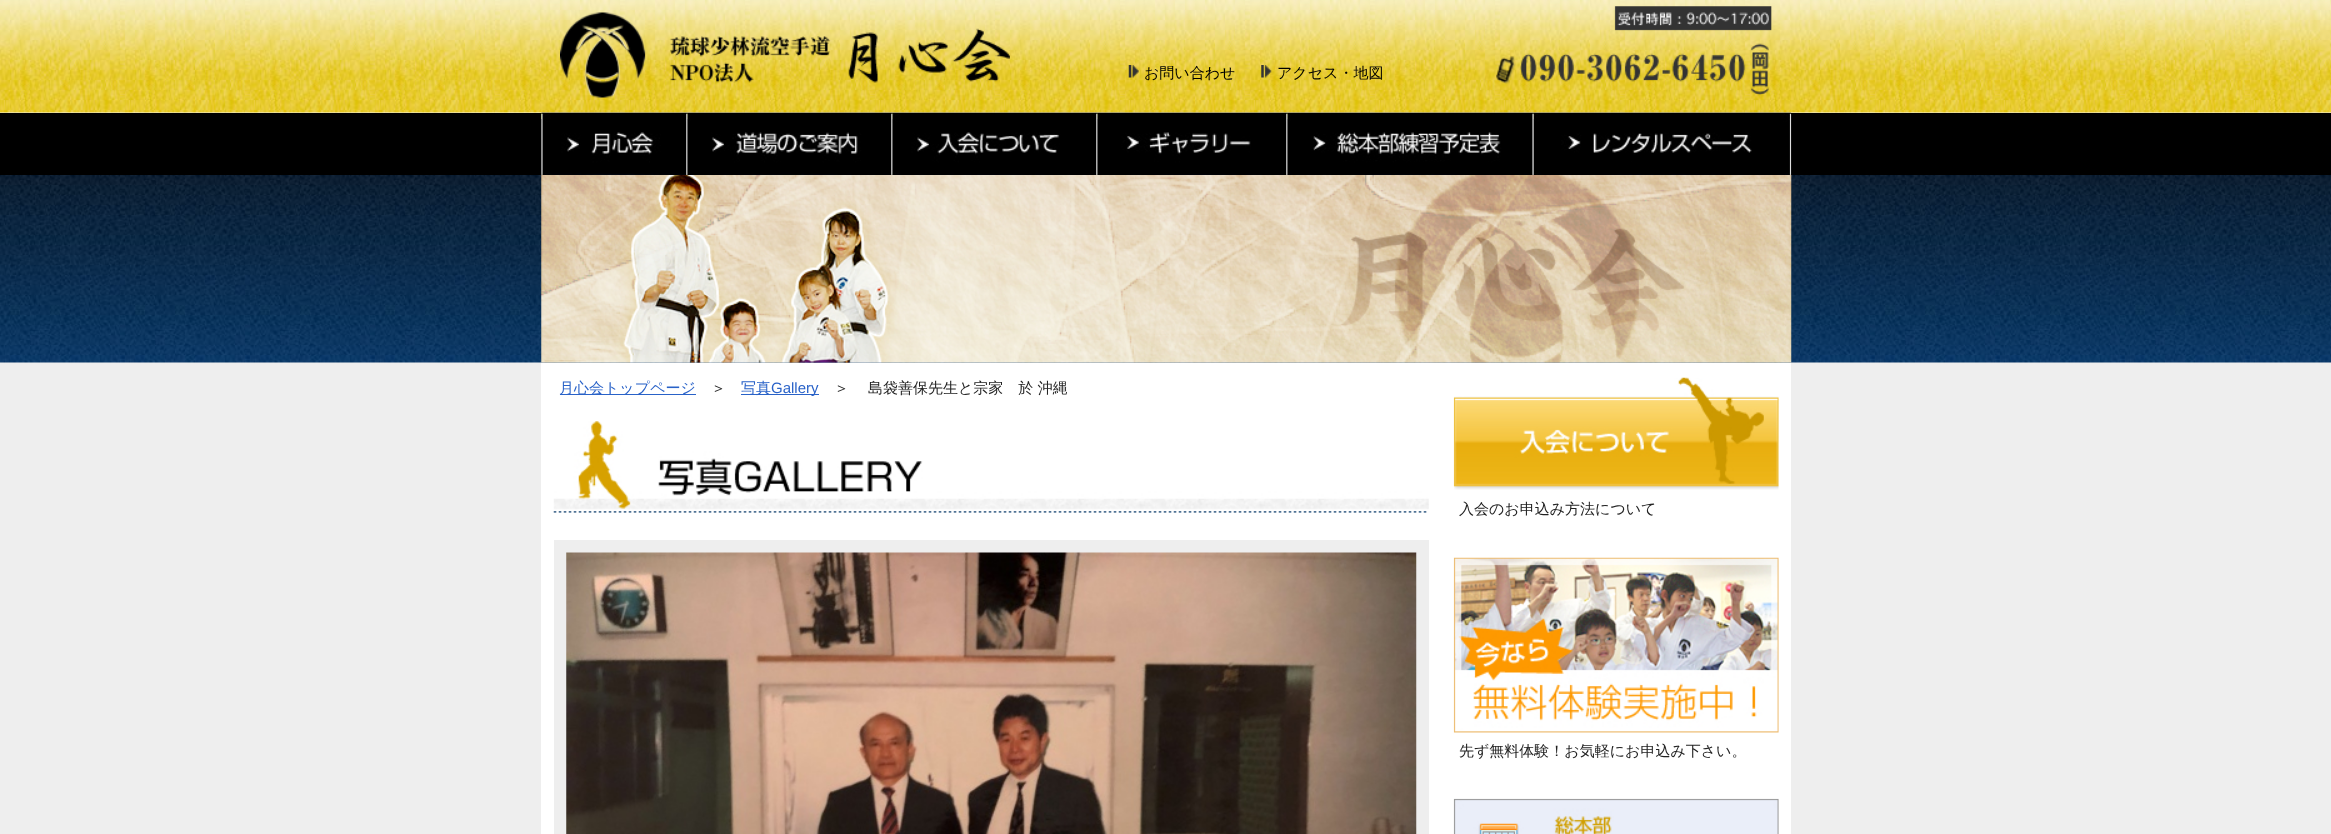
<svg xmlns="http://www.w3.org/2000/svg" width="2331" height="834">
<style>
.a{font:500 15px WenQuanYi Zen Hei;fill:#000}
.b{font:500 15px WenQuanYi Zen Hei;fill:#2962c8}
.c{font:500 15px WenQuanYi Zen Hei;fill:#222}
.d{font:15px Liberation Sans;fill:#2962c8}
</style>
<rect width="100%" height="100%" fill="#eee"/>
<image href="1.png" x="0" y="0" width="2331" height="113"/>
<image href="2.png" x="560" y="12" width="450" height="86"/>
<image href="3.png" x="1128" y="65" width="11" height="13"/>
<image href="4.png" x="1261" y="65" width="11" height="13"/>
<image href="5.png" x="1496" y="6" width="276" height="90"/>
<path fill="#000" d="M0 113h2331v62H0z"/>
<path fill="#535d09" d="M541 113h993v6H541z"/>
<image href="6.png" x="541" y="112" width="147" height="63"/>
<image href="7.png" x="687" y="112" width="206" height="63"/>
<image href="8.png" x="892" y="112" width="206" height="63"/>
<image href="9.png" x="1097" y="112" width="191" height="63"/>
<image href="10.png" x="1287" y="112" width="247" height="63"/>
<image href="11.png" x="1533" y="112" width="259" height="63"/>
<image href="12.png" x="0" y="175" width="2331" height="188"/>
<image href="13.png" x="541" y="175" width="1251" height="188"/>
<path fill="#fff" d="M541 363h1250v471H541z"/>
<path fill="#2962c8" d="M560 394h136v1H560z"/>
<path fill="#2962c8" d="M741 394h78v1H741z"/>
<image href="14.png" x="553" y="421" width="876" height="92"/>
<path fill="#eee" d="M554 540h875v294H554z"/>
<image href="15.png" x="566" y="552" width="851" height="282"/>
<image href="16.png" x="1453" y="377" width="326" height="113"/>
<image href="17.png" x="1453" y="557" width="326" height="176"/>
<image href="18.png" x="1453" y="798" width="326" height="36"/>
<text class="a" x="1144" y="78">お問い合わせ</text>
<text class="a" x="1277" y="78">アクセス・地図</text>
<text class="b" x="559" y="393">月心会トップページ</text>
<text class="c" x="711" y="393">＞</text>
<text class="b" x="741" y="393">写真</text>
<text class="d" x="771" y="393">Gallery</text>
<text class="c" x="834" y="393">＞</text>
<text class="c" x="868" y="393">島袋善保先生と宗家　於 沖縄</text>
<text class="c" x="1459" y="514">入会のお申込み方法について</text>
<text class="c" x="1459" y="756">先ず無料体験！お気軽にお申込み下さい。</text>
</svg>
